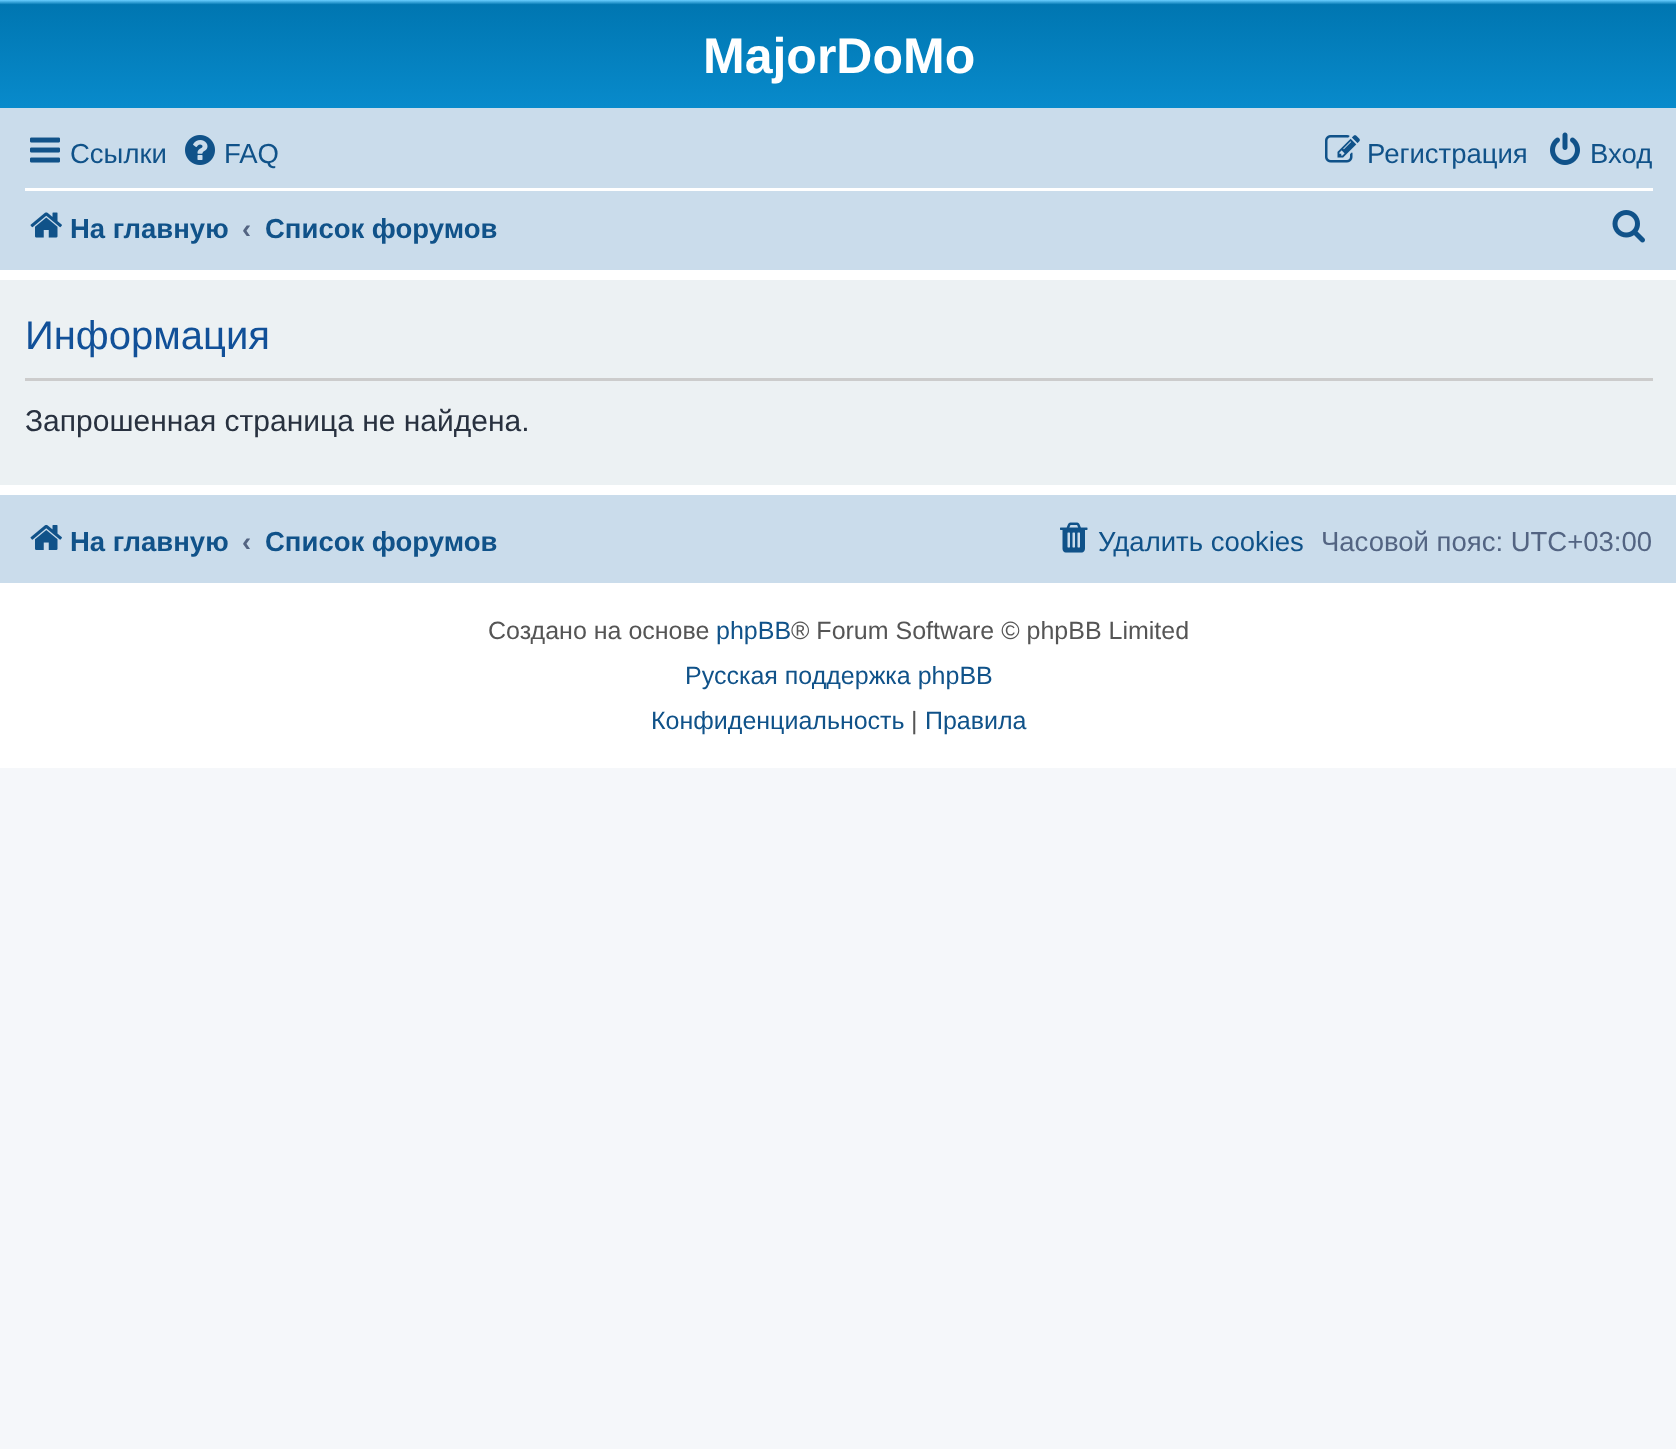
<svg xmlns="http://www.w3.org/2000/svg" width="1676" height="1449">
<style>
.a{font:bold 50px Liberation Sans;fill:#fff}
.b{font:27.5px Liberation Sans;fill:#105289}
.c{font:bold 27.5px Liberation Sans;fill:#105289}
.d{font:bold 27.5px Liberation Sans;fill:#536482}
.e{font:40px Liberation Sans;fill:#115098}
.f{font:30px Liberation Sans;fill:#28313f}
.g{font:27.5px Liberation Sans;fill:#536482}
.h{font:25px Liberation Sans;fill:#555}
.i{font:25px Liberation Sans;fill:#105289}
</style>
<defs>
<linearGradient id="g1" gradientUnits="userSpaceOnUse" x1="839" y1="0" x2="839" y2="230"><stop offset="0" stop-color="#6aceff"/><stop offset="0.02" stop-color="#0076b1"/><stop offset="1" stop-color="#12a3eb"/></linearGradient>
</defs>
<rect width="100%" height="100%" fill="#f5f7fa"/>
<path fill="#fff" d="M0 270h1676v498H0z"/>
<path fill="url(#g1)" d="M0 0h1676v108H0z"/>
<path fill="#cadceb" d="M0 108h1676v162H0z"/>
<image href="1.png" x="30" y="137" width="30" height="26"/>
<image href="2.png" x="185" y="135" width="30" height="30"/>
<image href="3.png" x="1325" y="135" width="35" height="28"/>
<image href="4.png" x="1550" y="132" width="30" height="33"/>
<path fill="#fff" d="M25 188h1628v3H25z"/>
<image href="5.png" x="30" y="212" width="32" height="26"/>
<image href="6.png" x="1612" y="210" width="33" height="33"/>
<path fill="#ecf1f3" d="M0 280h1676v205H0z"/>
<path fill="#ccc" d="M25 378h1628v3H25z"/>
<path fill="#cadceb" d="M0 495h1676v88H0z"/>
<image href="7.png" x="30" y="524" width="32" height="26"/>
<image href="8.png" x="1060" y="522" width="28" height="31"/>
<text class="a" x="703" y="73">MajorDoMo</text>
<text class="b" x="70" y="163">Ссылки</text>
<text class="b" x="224" y="163">FAQ</text>
<text class="b" x="1367" y="163">Регистрация</text>
<text class="b" x="1590" y="163">Вход</text>
<text class="c" x="70" y="238">На главную</text>
<text class="d" x="242" y="238">‹</text>
<text class="c" x="265" y="238">Список форумов</text>
<text class="e" x="25" y="349">Информация</text>
<text class="f" x="25" y="431">Запрошенная страница не найдена.</text>
<text class="c" x="70" y="551">На главную</text>
<text class="d" x="242" y="551">‹</text>
<text class="c" x="265" y="551">Список форумов</text>
<text class="b" x="1098" y="551">Удалить cookies</text>
<text class="g" x="1321" y="551">Часовой пояс: UTC+03:00</text>
<text class="h" x="488" y="639">Создано на основе</text>
<text class="i" x="716" y="639">phpBB</text>
<text class="h" x="791" y="639">® Forum Software © phpBB Limited</text>
<text class="i" x="685" y="684">Русская поддержка phpBB</text>
<text class="i" x="651" y="729">Конфиденциальность</text>
<text class="h" x="911" y="729">|</text>
<text class="i" x="925" y="729">Правила</text>
</svg>
